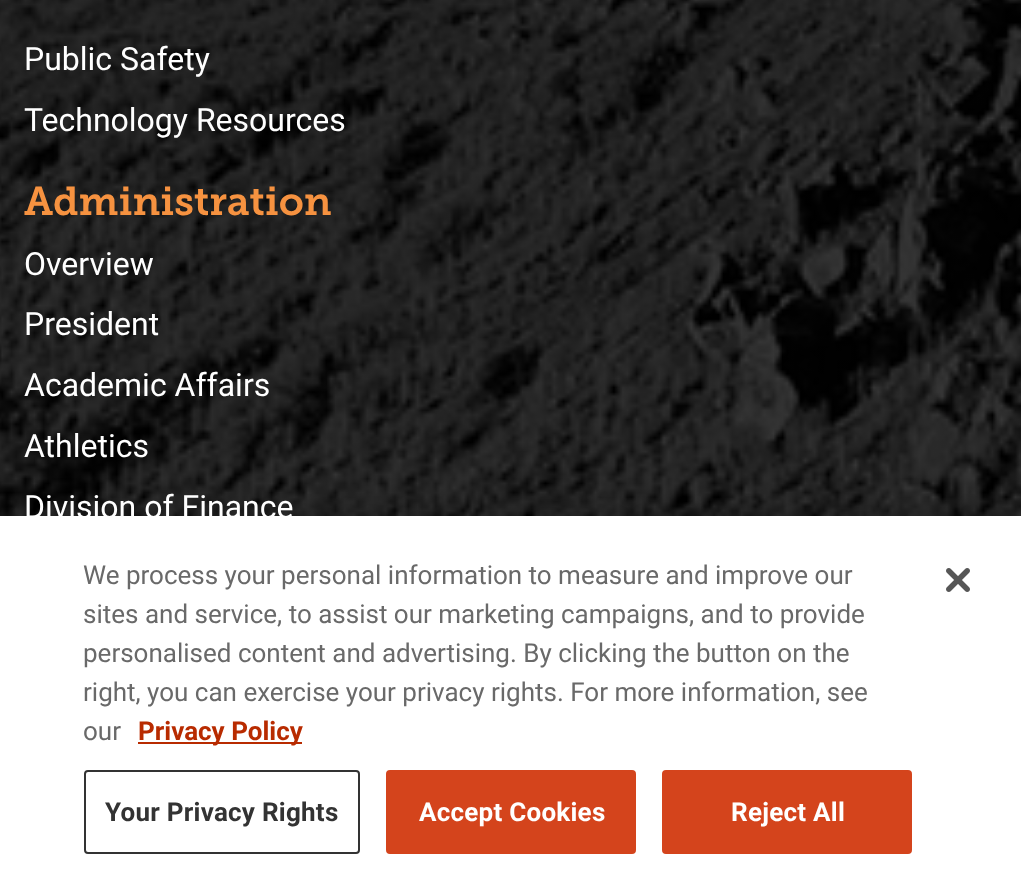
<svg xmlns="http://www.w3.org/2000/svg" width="1021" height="894">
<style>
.a{font:32px Roboto;fill:#fff}
.b{font:600 40px Museo Slab;fill:#f69240}
.c{font:26px Roboto;fill:#696969}
.d{font:bold 26px Roboto;fill:#b82b00}
.e{font:bold 26px Roboto;letter-spacing:0.25px;fill:#333}
.f{font:bold 26px Roboto;letter-spacing:0.25px;fill:#fff}
</style>
<rect width="100%" height="100%" fill="#fff"/>
<image href="1.png" x="0" y="0" width="1021" height="516"/>
<path fill="#00000033" filter="blur(18px)" d="M0 516h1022v378H0z"/>
<path fill="#fff" d="M0 516h1021v378H0z"/>
<path fill="#b82b00" d="M138 742h164v2H138z"/>
<rect fill="none" stroke="#333" stroke-width="2" x="85" y="771" width="274" height="82" rx="3"/>
<rect fill="#d4441c" stroke="#d4441c" stroke-width="2" x="387" y="771" width="248" height="82" rx="3"/>
<rect fill="#d4441c" stroke="#d4441c" stroke-width="2" x="663" y="771" width="248" height="82" rx="3"/>
<image href="2.png" x="946" y="568" width="24" height="24"/>
<text class="a" x="24" y="70">Public Safety</text>
<text class="a" x="24" y="131">Technology Resources</text>
<text class="b" x="24" y="215">Administration</text>
<text class="a" x="24" y="275">Overview</text>
<text class="a" x="24" y="335">President</text>
<text class="a" x="24" y="396">Academic Affairs</text>
<text class="a" x="24" y="457">Athletics</text>
<text class="a" x="24" y="518">Division of Finance</text>
<text class="c" x="83" y="584">We process your personal information to measure and improve our</text>
<text class="c" x="83" y="623">sites and service, to assist our marketing campaigns, and to provide</text>
<text class="c" x="83" y="662">personalised content and advertising. By clicking the button on the</text>
<text class="c" x="83" y="701">right, you can exercise your privacy rights. For more information, see</text>
<text class="c" x="83" y="740">our</text>
<text class="d" x="138" y="740">Privacy Policy</text>
<text class="e" x="105" y="821">Your Privacy Rights</text>
<text class="f" x="419" y="821">Accept Cookies</text>
<text class="f" x="731" y="821">Reject All</text>
</svg>
